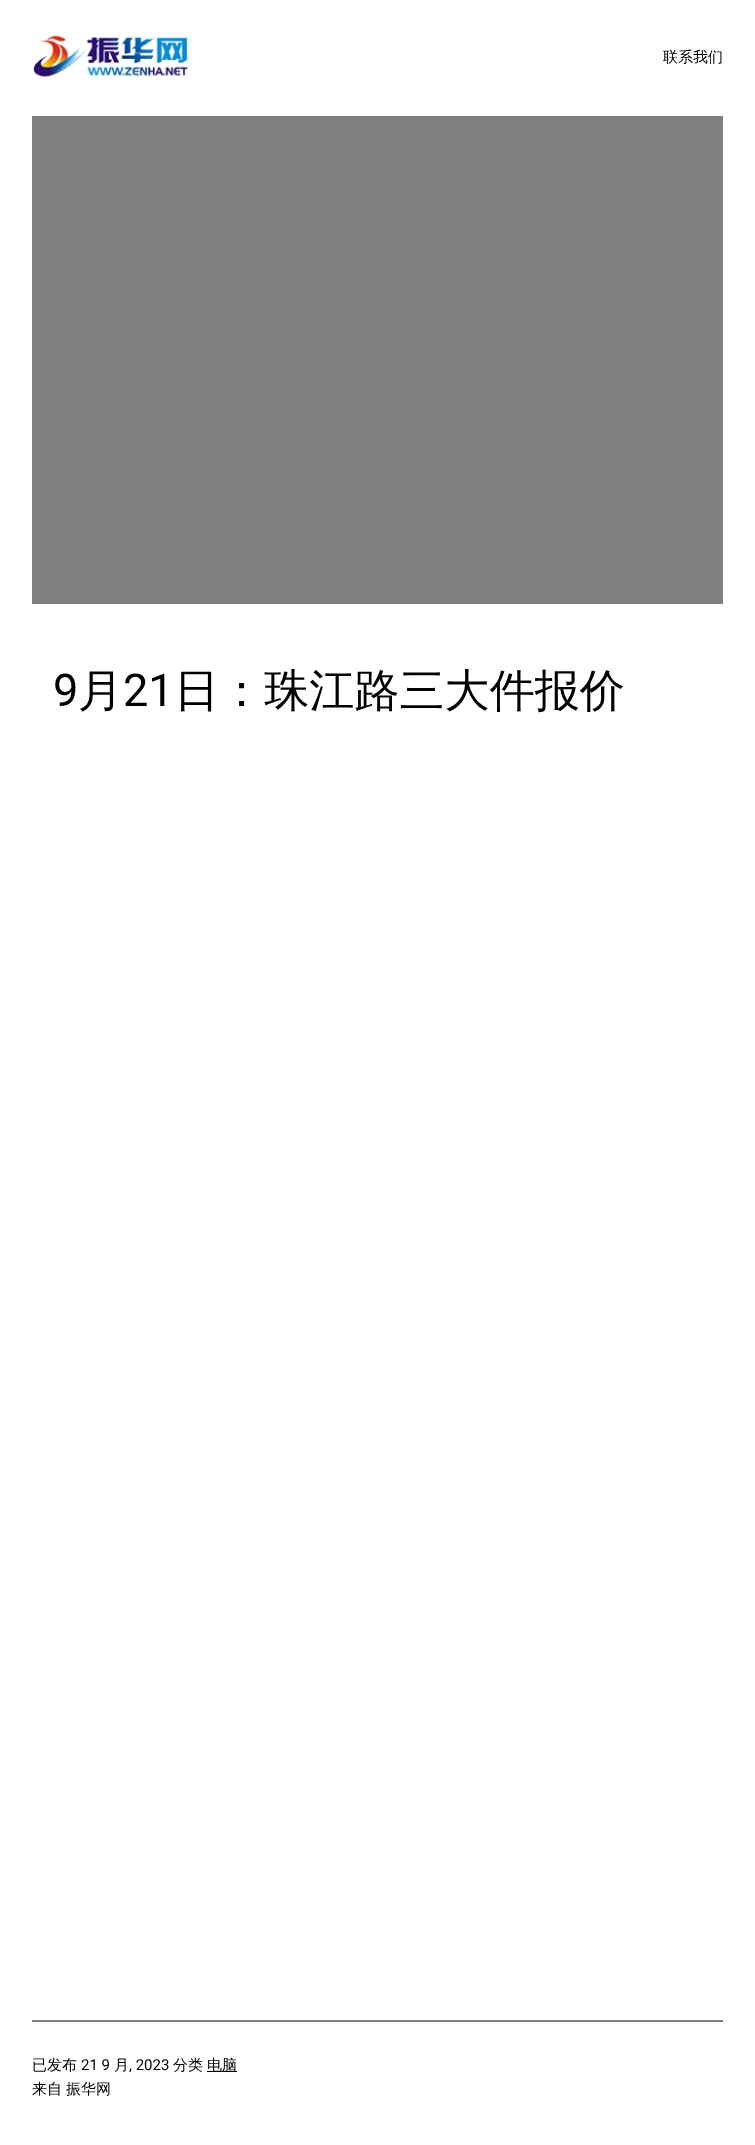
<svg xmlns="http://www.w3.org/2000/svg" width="755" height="2145">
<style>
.a{font:500 15px WenQuanYi Zen Hei;fill:#000}
.b{font:45.1px Roboto;fill:#000}
.c{font:500 45.1px WenQuanYi Zen Hei;fill:#000}
.d{font:15px Roboto;fill:#000}
</style>
<rect width="100%" height="100%" fill="#fff"/>
<image href="1.png" x="33" y="35" width="155" height="43"/>
<path fill="#808080" d="M32 116h691v488H32z"/>
<path fill="#808080" d="M32 2020h691v2H32z"/>
<path fill="#000" d="M207 2071h30v1H207z"/>
<text class="a" x="663" y="62">联系我们</text>
<text class="b" x="53" y="706">9</text>
<text class="c" x="78" y="706">月</text>
<text class="b" x="123" y="706">21</text>
<text class="c" x="174" y="706">日：珠江路三大件报价</text>
<text class="a" x="32" y="2070">已发布</text>
<text class="d" x="81" y="2070">21 9</text>
<text class="a" x="114" y="2070">月</text>
<text class="d" x="129" y="2070">, 2023</text>
<text class="a" x="173" y="2070">分类</text>
<text class="a" x="207" y="2070">电脑</text>
<text class="a" x="32" y="2094">来自</text>
<text class="a" x="66" y="2094">振华网</text>
</svg>
